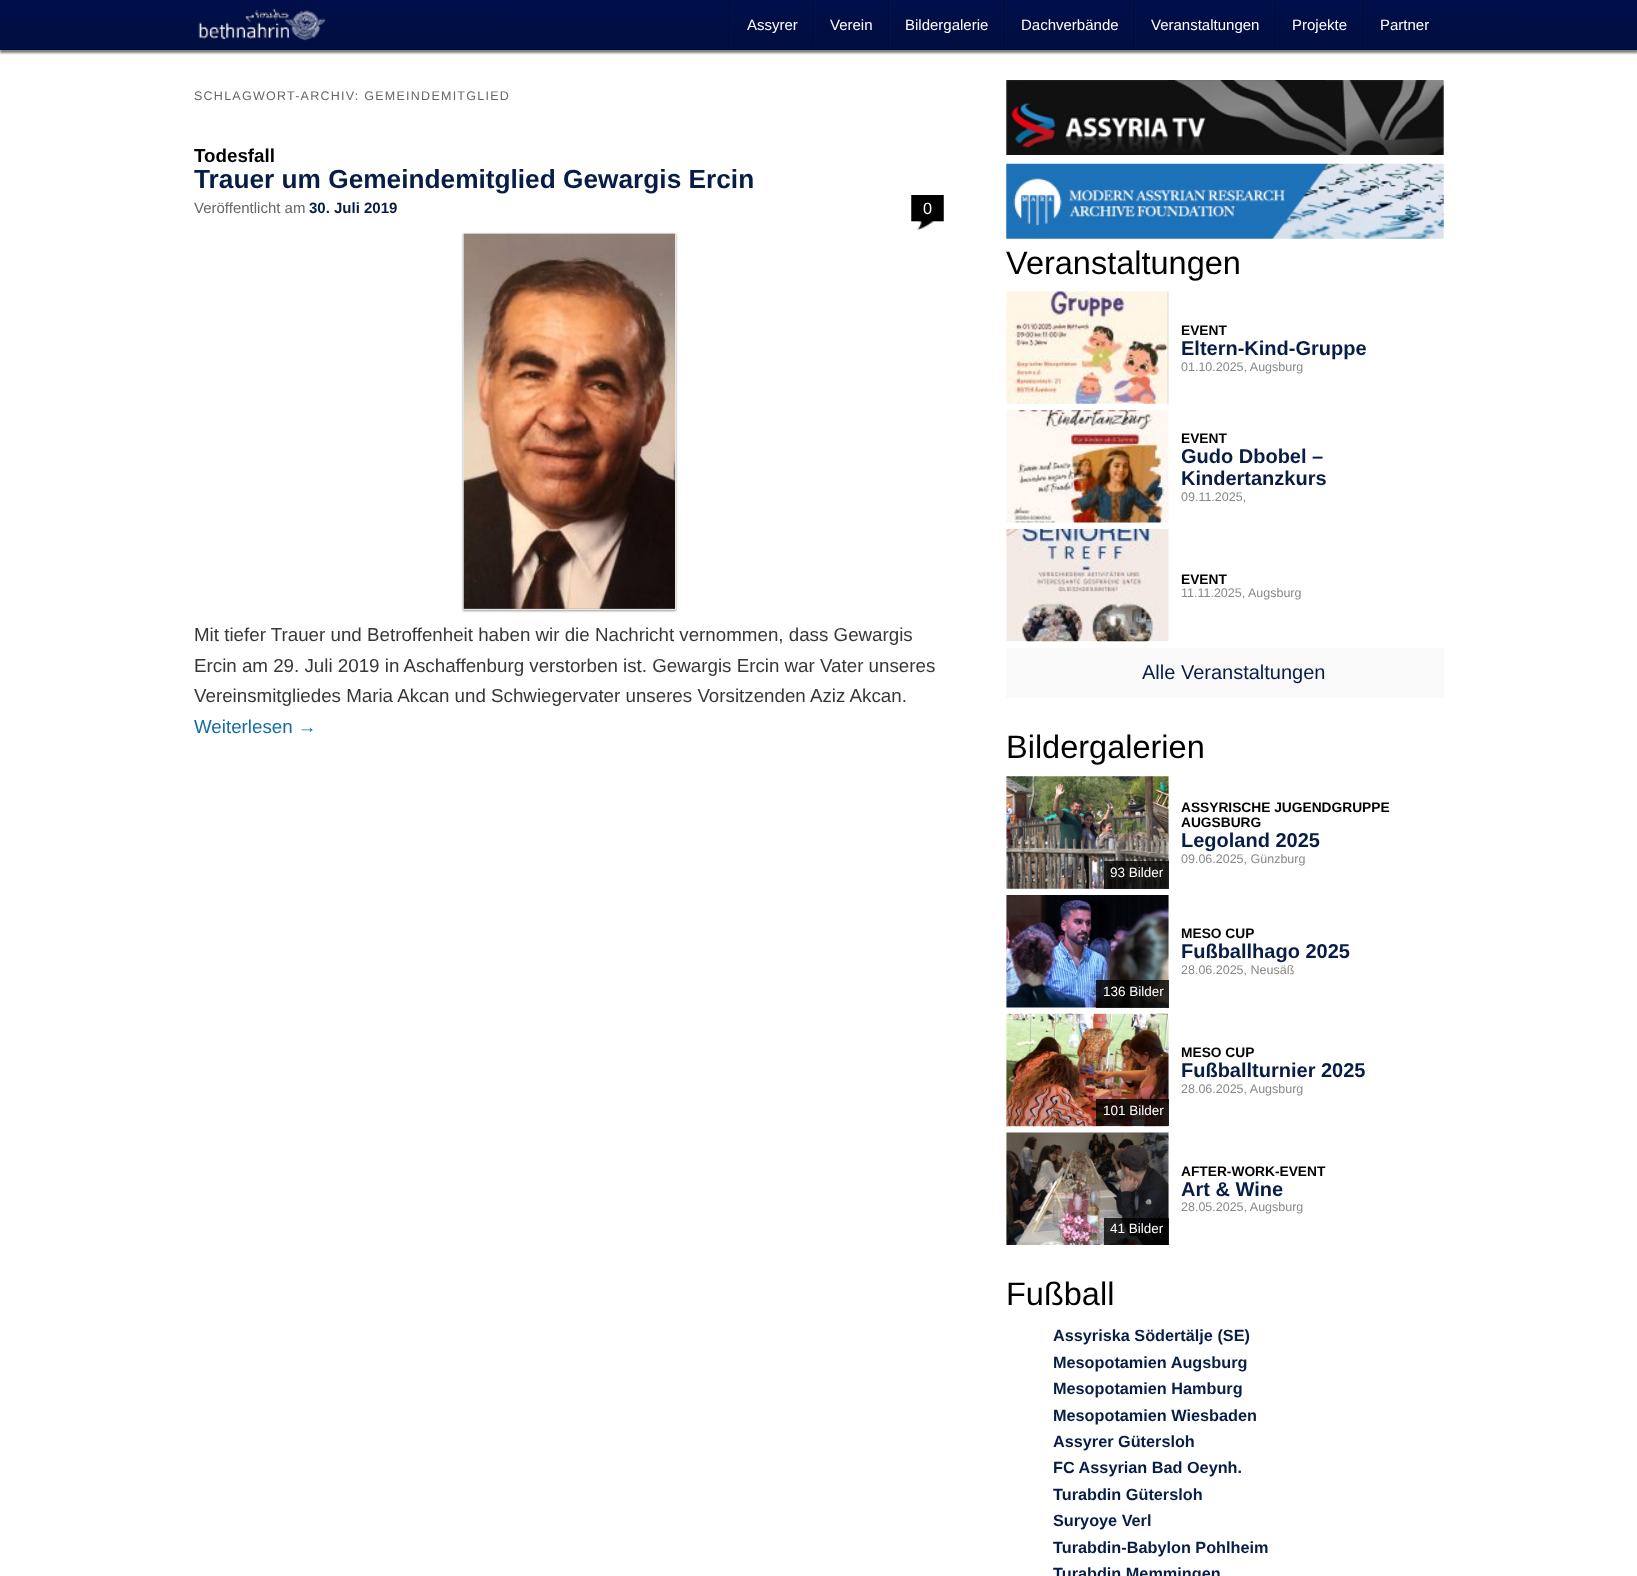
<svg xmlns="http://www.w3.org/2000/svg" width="1637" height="1576">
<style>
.a{font:15px Liberation Sans;fill:#fff}
.b{font:12.5px Liberation Sans;letter-spacing:1.25px;fill:#666}
.c{font:bold 18.75px Liberation Sans;fill:#000}
.d{font:bold 26.25px Liberation Sans;fill:#081d46}
.e{font:15px Liberation Sans;fill:#666}
.f{font:bold 15px Liberation Sans;fill:#081d46}
.g{font:16.25px Liberation Sans;fill:#fff}
.h{font:18.75px Liberation Sans;fill:#373737}
.i{font:18.75px Liberation Sans;fill:#156ca5}
.j{font:32.5px Liberation Sans;fill:#000}
.k{font:bold 13.75px Liberation Sans;fill:#000}
.l{font:bold 20px Liberation Sans;fill:#081d46}
.m{font:12.5px Liberation Sans;fill:#888}
.n{font:20px Liberation Sans;fill:#081d46}
.o{font:13.5px Liberation Sans;fill:#fff}
.p{font:bold 16.25px Liberation Sans;fill:#081d46}
</style>
<defs>
<linearGradient id="g1" gradientUnits="userSpaceOnUse" x1="819" y1="0" x2="819" y2="50"><stop offset="0" stop-color="#000f4b"/><stop offset="1" stop-color="#000d3f"/></linearGradient>
</defs>
<rect width="100%" height="100%" fill="#fff"/>
<path fill="#00000080" filter="blur(1px)" d="M0 3h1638v50H0z"/>
<path fill="url(#g1)" d="M0 0h1637v50H0z"/>
<image href="1.png" x="198" y="8" width="128" height="33"/>
<path fill="#000a32" d="M729 0h1v50H729z"/>
<path fill="#001150" d="M730 0h1v50H730z"/>
<path fill="#000a32" d="M813 0h1v50H813z"/>
<path fill="#001150" d="M814 0h1v50H814z"/>
<path fill="#000a32" d="M888 0h1v50H888z"/>
<path fill="#001150" d="M889 0h1v50H889z"/>
<path fill="#000a32" d="M1004 0h1v50H1004z"/>
<path fill="#001150" d="M1005 0h1v50H1005z"/>
<path fill="#000a32" d="M1134 0h1v50H1134z"/>
<path fill="#001150" d="M1135 0h1v50H1135z"/>
<path fill="#000a32" d="M1275 0h1v50H1275z"/>
<path fill="#001150" d="M1276 0h1v50H1276z"/>
<path fill="#000a32" d="M1363 0h1v50H1363z"/>
<path fill="#001150" d="M1364 0h1v50H1364z"/>
<image href="2.png" x="911" y="195" width="33" height="35"/>
<path fill="#00000066" filter="blur(1px)" d="M463 234h213v377H463z"/>
<path fill="none" stroke="#e6e6e6" d="M463.5 233.5h212v376H463.5z"/>
<image href="3.png" x="463" y="233" width="212" height="376"/>
<image href="4.png" x="1006" y="80" width="438" height="75"/>
<image href="5.png" x="1006" y="163" width="438" height="76"/>
<image href="6.png" x="1006" y="291" width="163" height="113"/>
<image href="7.png" x="1006" y="410" width="163" height="113"/>
<image href="8.png" x="1006" y="528" width="163" height="114"/>
<path fill="#f9f9f9" d="M1006 648h438v50H1006z"/>
<image href="9.png" x="1006" y="776" width="163" height="113"/>
<path fill="#000000cc" d="M1104 861h65v28H1104z"/>
<image href="10.png" x="1006" y="895" width="163" height="113"/>
<path fill="#000000cc" d="M1096 980h73v28H1096z"/>
<image href="11.png" x="1006" y="1013" width="163" height="114"/>
<path fill="#000000cc" d="M1096 1099h73v27H1096z"/>
<image href="12.png" x="1006" y="1132" width="163" height="113"/>
<path fill="#000000cc" d="M1104 1218h65v27H1104z"/>
<text class="a" x="747" y="30">Assyrer</text>
<text class="a" x="830" y="30">Verein</text>
<text class="a" x="905" y="30">Bildergalerie</text>
<text class="a" x="1021" y="30">Dachverbände</text>
<text class="a" x="1151" y="30">Veranstaltungen</text>
<text class="a" x="1292" y="30">Projekte</text>
<text class="a" x="1380" y="30">Partner</text>
<text class="b" x="194" y="100">SCHLAGWORT-ARCHIV: GEMEINDEMITGLIED</text>
<text class="c" x="194" y="162">Todesfall</text>
<text class="d" x="194" y="188">Trauer um Gemeindemitglied Gewargis Ercin</text>
<text class="e" x="194" y="213">Veröffentlicht am</text>
<text class="f" x="309" y="213">30. Juli 2019</text>
<text class="g" x="923" y="214">0</text>
<text class="h" x="194" y="641">Mit tiefer Trauer und Betroffenheit haben wir die Nachricht vernommen, dass Gewargis</text>
<text class="h" x="194" y="672">Ercin am 29. Juli 2019 in Aschaffenburg verstorben ist. Gewargis Ercin war Vater unseres</text>
<text class="h" x="194" y="702">Vereinsmitgliedes Maria Akcan und Schwiegervater unseres Vorsitzenden Aziz Akcan.</text>
<text class="i" x="194" y="733">Weiterlesen →</text>
<text class="j" x="1006" y="274">Veranstaltungen</text>
<text class="k" x="1181" y="335">EVENT</text>
<text class="l" x="1181" y="355">Eltern-Kind-Gruppe</text>
<text class="m" x="1181" y="371">01.10.2025, Augsburg</text>
<text class="k" x="1181" y="443">EVENT</text>
<text class="l" x="1181" y="463">Gudo Dbobel –</text>
<text class="l" x="1181" y="485">Kindertanzkurs</text>
<text class="m" x="1181" y="501">09.11.2025,</text>
<text class="k" x="1181" y="584">EVENT</text>
<text class="m" x="1181" y="597">11.11.2025, Augsburg</text>
<text class="n" x="1142" y="679">Alle Veranstaltungen</text>
<text class="j" x="1006" y="758">Bildergalerien</text>
<text class="k" x="1181" y="812">ASSYRISCHE JUGENDGRUPPE</text>
<text class="k" x="1181" y="827">AUGSBURG</text>
<text class="l" x="1181" y="847">Legoland 2025</text>
<text class="m" x="1181" y="863">09.06.2025, Günzburg</text>
<text class="o" x="1110" y="877">93 Bilder</text>
<text class="k" x="1181" y="938">MESO CUP</text>
<text class="l" x="1181" y="958">Fußballhago 2025</text>
<text class="m" x="1181" y="974">28.06.2025, Neusäß</text>
<text class="o" x="1103" y="996">136 Bilder</text>
<text class="k" x="1181" y="1057">MESO CUP</text>
<text class="l" x="1181" y="1077">Fußballturnier 2025</text>
<text class="m" x="1181" y="1093">28.06.2025, Augsburg</text>
<text class="o" x="1103" y="1115">101 Bilder</text>
<text class="k" x="1181" y="1176">AFTER-WORK-EVENT</text>
<text class="l" x="1181" y="1196">Art &amp; Wine</text>
<text class="m" x="1181" y="1211">28.05.2025, Augsburg</text>
<text class="o" x="1110" y="1233">41 Bilder</text>
<text class="j" x="1006" y="1305">Fußball</text>
<text class="p" x="1053" y="1341">Assyriska Södertälje (SE)</text>
<text class="p" x="1053" y="1368">Mesopotamien Augsburg</text>
<text class="p" x="1053" y="1394">Mesopotamien Hamburg</text>
<text class="p" x="1053" y="1421">Mesopotamien Wiesbaden</text>
<text class="p" x="1053" y="1447">Assyrer Gütersloh</text>
<text class="p" x="1053" y="1473">FC Assyrian Bad Oeynh.</text>
<text class="p" x="1053" y="1500">Turabdin Gütersloh</text>
<text class="p" x="1053" y="1526">Suryoye Verl</text>
<text class="p" x="1053" y="1553">Turabdin-Babylon Pohlheim</text>
<text class="p" x="1053" y="1579">Turabdin Memmingen</text>
</svg>
